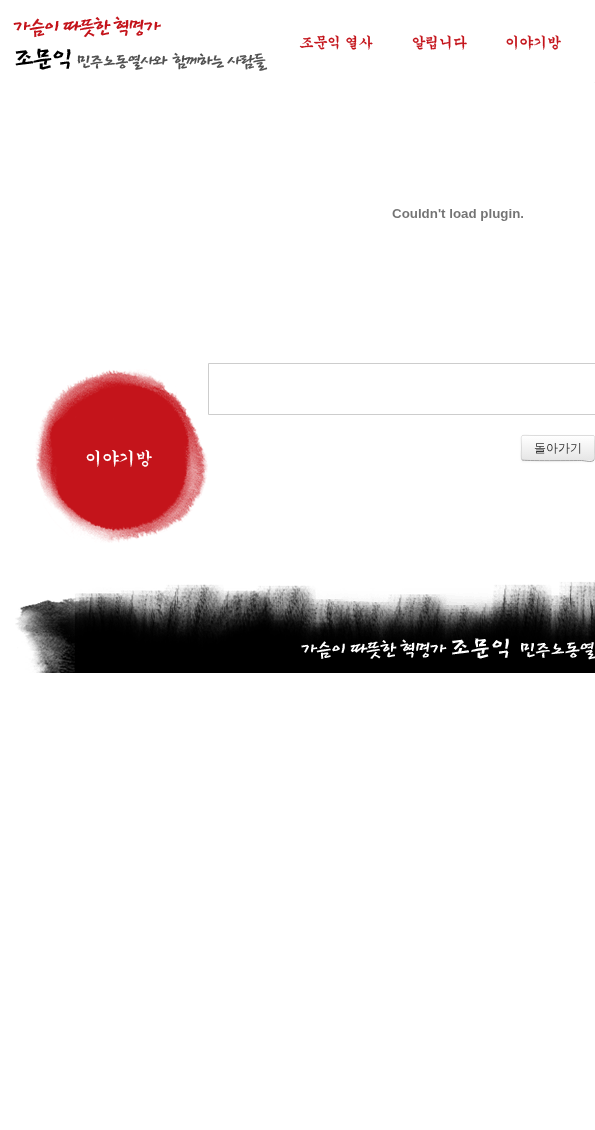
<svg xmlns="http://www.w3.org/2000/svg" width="595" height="1130">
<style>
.a{font:500 12px WenQuanYi Zen Hei;fill:#333}
</style>
<defs>
<clipPath id="clip1"><rect x="521" y="435" width="74" height="26" rx="2"/></clipPath>
<linearGradient id="g1" gradientUnits="userSpaceOnUse" x1="558" y1="436" x2="558" y2="460"><stop offset="0" stop-color="#fff"/><stop offset="1" stop-color="#e6e6e6"/></linearGradient>
</defs>
<rect width="100%" height="100%" fill="#fff"/>
<image href="1.png" x="13" y="16" width="255" height="55"/>
<image href="2.png" x="299" y="35" width="74" height="15"/>
<image href="3.png" x="412" y="35" width="55" height="15"/>
<image href="4.png" x="506" y="35" width="55" height="15"/>
<path fill="#f8f8f8" d="M594 82h1v1H594z"/>
<image href="5.png" x="392" y="209" width="131" height="12"/>
<image href="6.png" x="35" y="369" width="173" height="174"/>
<path fill="none" stroke="#cdcdcd" d="M208.5 363.5h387v51H208.5z"/>
<rect fill="#0000000d" filter="blur(1px)" x="521" y="436" width="74" height="26" rx="2"/>
<rect fill="#f5f5f5" x="521" y="435" width="74" height="26" rx="2"/>
<g clip-path="url(#clip1)">
<path fill="url(#g1)" d="M521 436h74v24H521z"/>
</g>
<path fill="none" stroke="#a2a2a2" d="M594 460c-3 3-8.5 .5-12.5 .5c-6 0-59 .5-59.5-.5"/>
<path fill="none" stroke="#0000001a" d="M522 460c-1.5-1.5-.5-10-.5-12c0-15.5-3-12.5 13-12.5h58.5c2.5 0 1.5 4.5 1.5 5v11c0 2 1 7-.5 8.5"/>
<image href="7.png" x="15" y="580" width="580" height="93"/>
<text class="a" x="534" y="452">돌아가기</text>
</svg>
